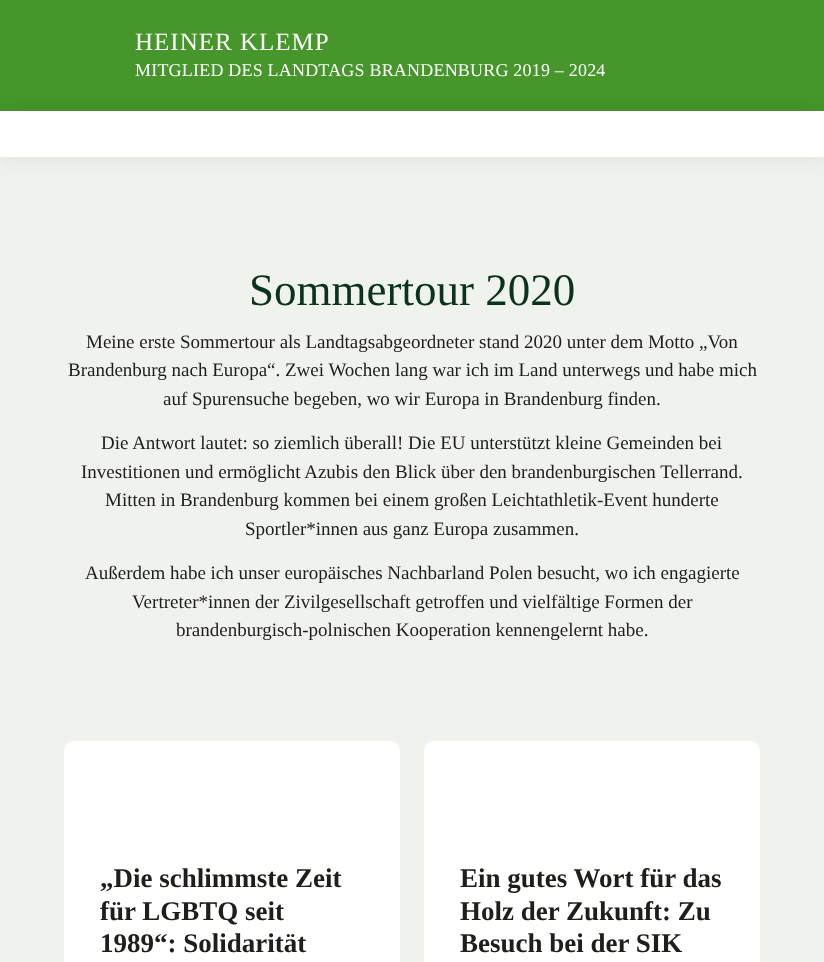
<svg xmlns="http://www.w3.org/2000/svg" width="824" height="962">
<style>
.a{font:25px Liberation Serif;letter-spacing:1px;fill:#fff}
.b{font:18px Liberation Serif;letter-spacing:0.2px;fill:#fff}
.c{font:45px Liberation Serif;fill:#0a321e}
.d{font:19px Liberation Serif;fill:#201d1b}
.e{font:bold 27px Liberation Serif;fill:#201d1b}
</style>
<rect width="100%" height="100%" fill="#eff2ed"/>
<path fill="#46962b" d="M0 0h824v111H0z"/>
<path fill="#00000014" filter="blur(10px)" d="M0 112h824v46H0z"/>
<path fill="#fff" d="M0 111h824v46H0z"/>
<rect fill="#fff" x="64" y="741" width="336" height="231" rx="10"/>
<rect fill="#fff" x="424" y="741" width="336" height="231" rx="10"/>
<text class="a" x="135" y="50">HEINER KLEMP</text>
<text class="b" x="135" y="76">MITGLIED DES LANDTAGS BRANDENBURG 2019 – 2024</text>
<text class="c" x="249" y="305">Sommertour 2020</text>
<text class="d" x="86" y="348">Meine erste Sommertour als Landtagsabgeordneter stand 2020 unter dem Motto „Von</text>
<text class="d" x="68" y="376">Brandenburg nach Europa“. Zwei Wochen lang war ich im Land unterwegs und habe mich</text>
<text class="d" x="163" y="405">auf Spurensuche begeben, wo wir Europa in Brandenburg finden.</text>
<text class="d" x="101" y="449">Die Antwort lautet: so ziemlich überall! Die EU unterstützt kleine Gemeinden bei</text>
<text class="d" x="81" y="478">Investitionen und ermöglicht Azubis den Blick über den brandenburgischen Tellerrand.</text>
<text class="d" x="105" y="506">Mitten in Brandenburg kommen bei einem großen Leichtathletik-Event hunderte</text>
<text class="d" x="245" y="535">Sportler*innen aus ganz Europa zusammen.</text>
<text class="d" x="85" y="579">Außerdem habe ich unser europäisches Nachbarland Polen besucht, wo ich engagierte</text>
<text class="d" x="132" y="608">Vertreter*innen der Zivilgesellschaft getroffen und vielfältige Formen der</text>
<text class="d" x="176" y="636">brandenburgisch-polnischen Kooperation kennengelernt habe.</text>
<text class="e" x="100" y="887">„Die schlimmste Zeit</text>
<text class="e" x="100" y="920">für LGBTQ seit</text>
<text class="e" x="100" y="952">1989“: Solidarität</text>
<text class="e" x="460" y="887">Ein gutes Wort für das</text>
<text class="e" x="460" y="920">Holz der Zukunft: Zu</text>
<text class="e" x="460" y="952">Besuch bei der SIK</text>
</svg>
